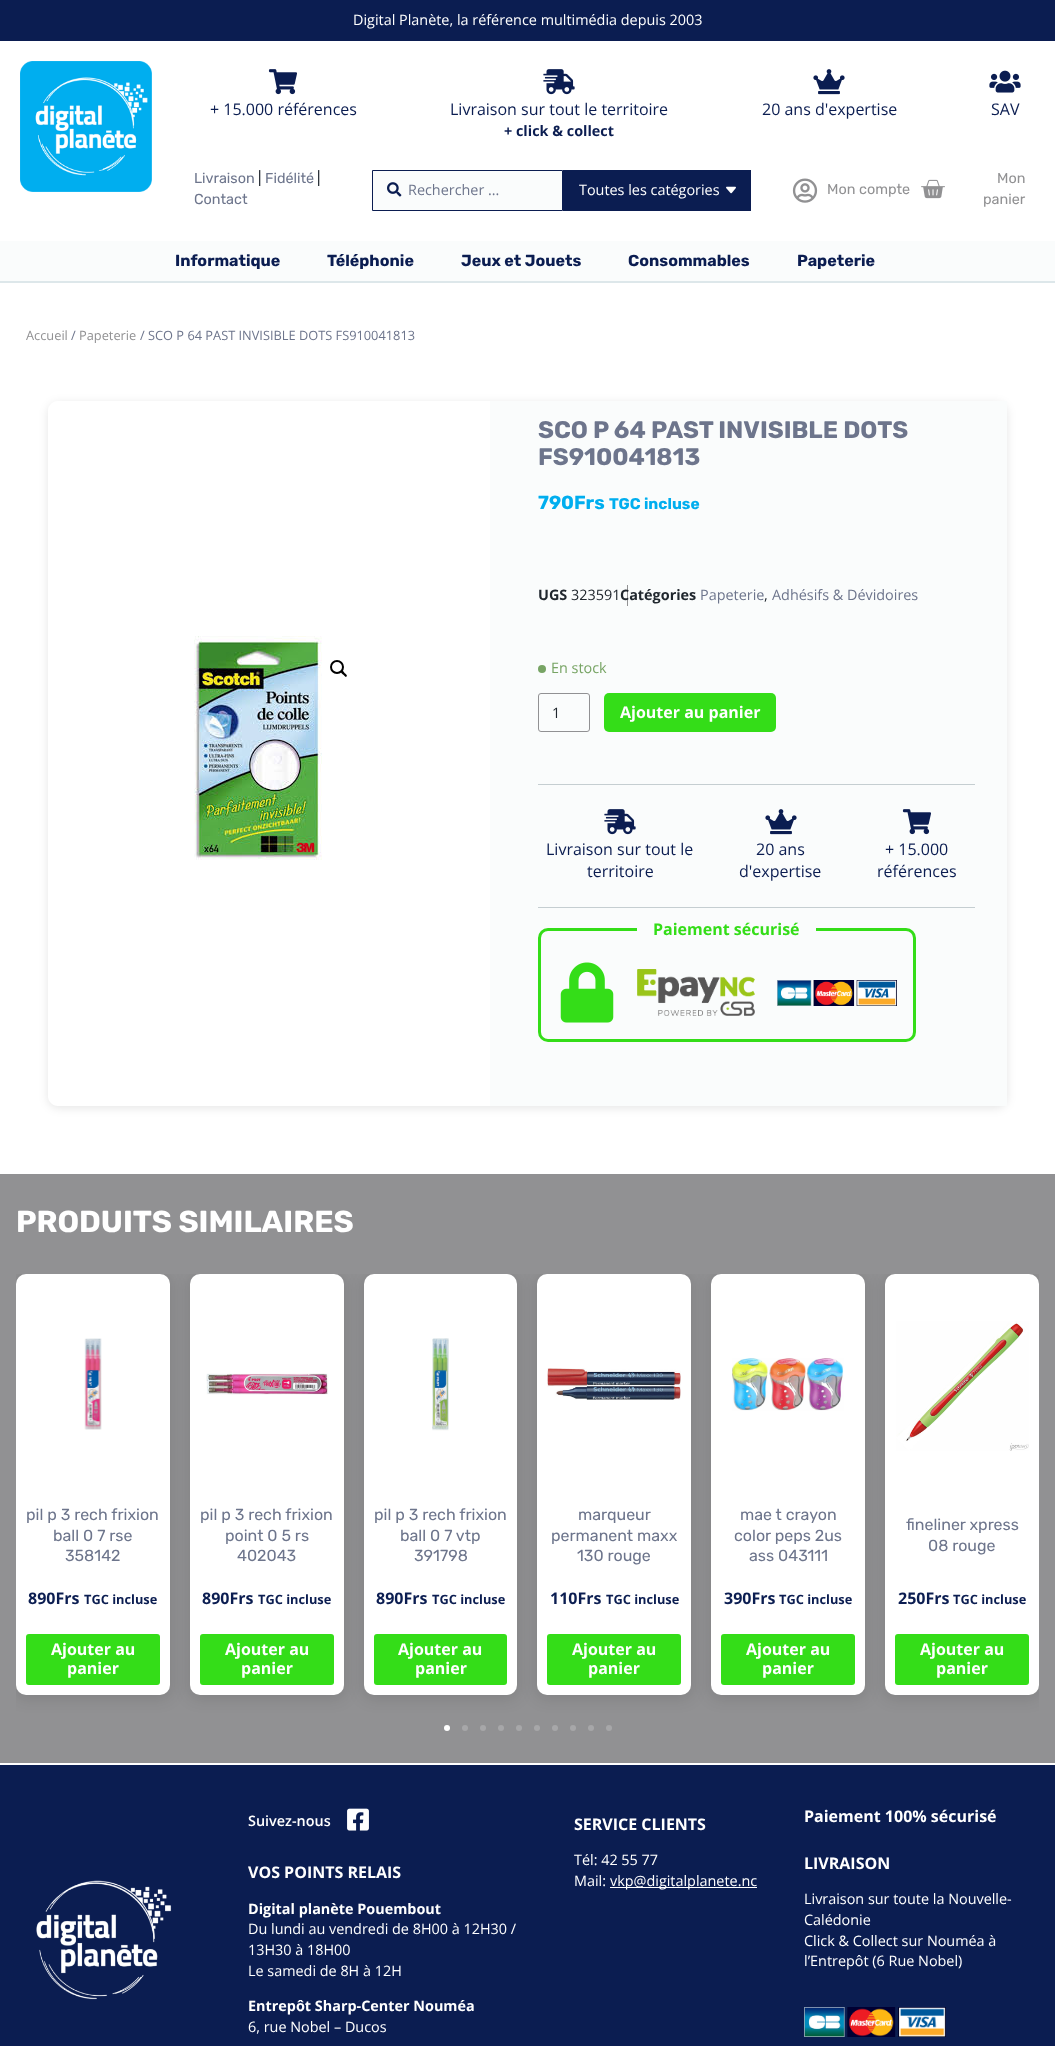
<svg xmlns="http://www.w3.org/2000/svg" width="1055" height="2046">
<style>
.a{font:14.4px Open Sans;fill:#fff}
.b{font:16px Open Sans;fill:#0b1d51}
.c{font:bold 14.4px Open Sans;fill:#0b1d51}
.d{font:14.4px Rubik;fill:#6d758c}
.e{font:14.4px Rubik;fill:#20272e}
.f{font:14.4px Open Sans;fill:#6d758c}
.g{font:14.4px Rubik;fill:#919193}
.h{font:bold 16px Rubik;fill:#0b1d51}
.i{font:12.8px Open Sans;fill:#919193}
.j{font:12.8px Open Sans;fill:#6d758c}
.k{font:bold 24px Rubik;fill:#6d758c}
.l{font:bold 19px Rubik;fill:#00aeef}
.m{font:bold 15.5px Rubik;fill:#00aeef}
.n{font:bold 14.4px Open Sans;fill:#20272e}
.o{font:14.4px Open Sans;fill:#20272e}
.p{font:14.4px Open Sans;fill:#77a464}
.q{font:bold 16px Open Sans;fill:#fff}
.r{font:bold 16px Open Sans;fill:#34dd18}
.s{font:bold 30.4px Rubik;fill:#fff}
.t{font:16px Rubik;fill:#6d758c}
.u{font:bold 16px Open Sans;fill:#0b1d51}
.v{font:bold 12.8px Open Sans;fill:#0b1d51}
.w{font:600 14.4px Open Sans;fill:#fff}
.x{font:bold 14.4px Open Sans;fill:#fff}
</style>
<defs>
<clipPath id="clip1"><path d="M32 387h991v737h-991zm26 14h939c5.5 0 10 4.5 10 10v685c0 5.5-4.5 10-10 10h-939c-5.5 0-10-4.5-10-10v-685c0-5.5 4.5-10 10-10z" clip-rule="evenodd"/></clipPath>
<clipPath id="clip2"><path d="M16 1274h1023v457H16z"/></clipPath>
</defs>
<rect width="100%" height="100%" fill="#fff"/>
<path fill="#0b1d51" d="M0 0h1055v41H0z"/>
<image href="1.png" x="20" y="61" width="132" height="131"/>
<image href="2.png" x="268" y="69" width="29" height="26"/>
<image href="3.png" x="543" y="69" width="32" height="26"/>
<image href="4.png" x="813" y="69" width="32" height="26"/>
<image href="5.png" x="989" y="70" width="32" height="23"/>
<path fill="#fafcfc" stroke="#0b1d51" d="M372.5 170.5h190v40H372.5z"/>
<image href="6.png" x="387" y="182" width="15" height="15"/>
<path fill="#0b1d51" d="M563 170h188v41H563z"/>
<image href="7.png" x="726" y="186" width="10" height="8"/>
<image href="8.png" x="792" y="178" width="26" height="25"/>
<image href="9.png" x="921" y="179" width="24" height="20"/>
<path fill="#fafcfc" d="M0 241h1055v40H0z"/>
<path fill="#dde7ea" d="M0 281h1055v2H0z"/>
<g clip-path="url(#clip1)">
<rect fill="#0000001a" filter="blur(5px)" x="48" y="403" width="959" height="705" rx="10"/>
</g>
<image href="10.png" x="194" y="636" width="128" height="224"/>
<circle fill="#fff" cx="339" cy="669" r="18"/>
<circle fill="none" stroke="#000" stroke-width="2" cx="337" cy="667" r="6"/>
<path fill="#000" d="M341 671c1.5-1.5 3 1.5 3.5 2c.5 .5 3.5 2.5 2 3.5c-1 1.5-2.5-1.5-3.5-2c-.5-.5-3-2.5-2-3.5z"/>
<path fill="#fafcfc" d="M490 401h517v705H490z"/>
<path fill="#919193" d="M627 585h1v21H627z"/>
<circle fill="#77a464" cx="542" cy="669" r="4"/>
<rect fill="none" stroke="#919193" x="538.5" y="693.5" width="51" height="38" rx="2.5"/>
<rect fill="#34dd18" x="604" y="693" width="172" height="39" rx="5"/>
<path fill="#c5ced1" d="M538 784h437v1H538z"/>
<path fill="#c5ced1" d="M538 907h437v1H538z"/>
<image href="11.png" x="604" y="809" width="32" height="26"/>
<image href="12.png" x="765" y="809" width="32" height="26"/>
<image href="13.png" x="902" y="809" width="29" height="26"/>
<rect fill="none" stroke="#34dd18" stroke-width="3" x="539.5" y="929.5" width="375" height="111" rx="8.5"/>
<path fill="#fafcfc" d="M637 928h179v3H637z"/>
<image href="14.png" x="560" y="962" width="54" height="61"/>
<image href="15.png" x="637" y="969" width="118" height="47"/>
<image href="16.png" x="777" y="980" width="120" height="26"/>
<path fill="#919193" d="M0 1174h1055v589H0z"/>
<g clip-path="url(#clip2)">
<rect fill="#0000001a" filter="blur(7.5px)" x="14" y="1274" width="158" height="425" rx="12"/>
</g>
<rect fill="#fff" x="16" y="1274" width="154" height="421" rx="10"/>
<image href="17.png" x="84" y="1338" width="18" height="92"/>
<rect fill="#34dd18" x="26" y="1634" width="134" height="51" rx="3"/>
<g clip-path="url(#clip2)">
<rect fill="#0000001a" filter="blur(7.5px)" x="188" y="1274" width="158" height="425" rx="12"/>
</g>
<rect fill="#fff" x="190" y="1274" width="154" height="421" rx="10"/>
<image href="18.png" x="206" y="1373" width="123" height="22"/>
<rect fill="#34dd18" x="200" y="1634" width="134" height="51" rx="3"/>
<g clip-path="url(#clip2)">
<rect fill="#0000001a" filter="blur(7.5px)" x="362" y="1274" width="157" height="425" rx="12"/>
</g>
<rect fill="#fff" x="364" y="1274" width="153" height="421" rx="10"/>
<image href="19.png" x="432" y="1338" width="17" height="93"/>
<rect fill="#34dd18" x="374" y="1634" width="133" height="51" rx="3"/>
<g clip-path="url(#clip2)">
<rect fill="#0000001a" filter="blur(7.5px)" x="535" y="1274" width="158" height="425" rx="12"/>
</g>
<rect fill="#fff" x="537" y="1274" width="154" height="421" rx="10"/>
<image href="20.png" x="547" y="1368" width="134" height="32"/>
<rect fill="#34dd18" x="547" y="1634" width="134" height="51" rx="3"/>
<g clip-path="url(#clip2)">
<rect fill="#0000001a" filter="blur(7.5px)" x="709" y="1274" width="158" height="425" rx="12"/>
</g>
<rect fill="#fff" x="711" y="1274" width="154" height="421" rx="10"/>
<image href="21.png" x="732" y="1358" width="112" height="53"/>
<rect fill="#34dd18" x="721" y="1634" width="134" height="51" rx="3"/>
<g clip-path="url(#clip2)">
<rect fill="#0000001a" filter="blur(7.5px)" x="883" y="1274" width="158" height="425" rx="12"/>
</g>
<rect fill="#fff" x="885" y="1274" width="154" height="421" rx="10"/>
<image href="22.png" x="896" y="1321" width="133" height="130"/>
<rect fill="#34dd18" x="895" y="1634" width="134" height="51" rx="3"/>
<circle fill="#fff" cx="447" cy="1728" r="3"/>
<circle fill="#a7a7a9" cx="465" cy="1728" r="3"/>
<circle fill="#a7a7a9" cx="483" cy="1728" r="3"/>
<circle fill="#a7a7a9" cx="501" cy="1728" r="3"/>
<circle fill="#a7a7a9" cx="519" cy="1728" r="3"/>
<circle fill="#a7a7a9" cx="537" cy="1728" r="3"/>
<circle fill="#a7a7a9" cx="555" cy="1728" r="3"/>
<circle fill="#a7a7a9" cx="573" cy="1728" r="3"/>
<circle fill="#a7a7a9" cx="591" cy="1728" r="3"/>
<circle fill="#a7a7a9" cx="609" cy="1728" r="3"/>
<path fill="#0b1d51" d="M0 1765h1055v281H0z"/>
<image href="23.png" x="347" y="1808" width="22" height="23"/>
<path fill="#fff" d="M610 1887h147v1H610z"/>
<image href="24.png" x="804" y="2007" width="142" height="30"/>
<image href="25.png" x="36" y="1880" width="136" height="120"/>
<text class="a" x="353" y="25">Digital Planète, la référence multimédia depuis 2003</text>
<text class="b" x="210" y="115">+ 15.000 références</text>
<text class="b" x="450" y="115">Livraison sur tout le territoire</text>
<text class="c" x="504" y="136">+ click &amp; collect</text>
<text class="b" x="762" y="115">20 ans d'expertise</text>
<text class="b" x="991" y="115">SAV</text>
<text class="d" x="194" y="183">Livraison</text>
<text class="e" x="258" y="183">|</text>
<text class="d" x="265" y="183">Fidélité</text>
<text class="e" x="317" y="183">|</text>
<text class="d" x="194" y="204">Contact</text>
<text class="f" x="408" y="195">Rechercher ...</text>
<text class="a" x="579" y="195">Toutes les catégories</text>
<text class="g" x="827" y="194">Mon compte</text>
<text class="g" x="997" y="183">Mon</text>
<text class="g" x="983" y="204">panier</text>
<text class="h" x="175" y="266">Informatique</text>
<text class="h" x="327" y="266">Téléphonie</text>
<text class="h" x="461" y="266">Jeux et Jouets</text>
<text class="h" x="628" y="266">Consommables</text>
<text class="h" x="797" y="266">Papeterie</text>
<text class="i" x="26" y="340">Accueil</text>
<text class="j" x="71" y="340">/</text>
<text class="i" x="79" y="340">Papeterie</text>
<text class="j" x="140" y="340">/ SCO P 64 PAST INVISIBLE DOTS FS910041813</text>
<text class="k" x="538" y="438">SCO P 64 PAST INVISIBLE DOTS</text>
<text class="k" x="538" y="465">FS910041813</text>
<text class="l" x="538" y="509">790Frs</text>
<text class="m" x="609" y="509">TGC incluse</text>
<text class="n" x="538" y="600">UGS</text>
<text class="o" x="571" y="600">323591</text>
<text class="n" x="620" y="600">Catégories</text>
<text class="f" x="700" y="600">Papeterie</text>
<text class="o" x="764" y="600">,</text>
<text class="f" x="772" y="600">Adhésifs &amp; Dévidoires</text>
<text class="p" x="551" y="673">En stock</text>
<text class="o" x="552" y="718">1</text>
<text class="q" x="620" y="718">Ajouter au panier</text>
<text class="b" x="546" y="855">Livraison sur tout le</text>
<text class="b" x="587" y="877">territoire</text>
<text class="b" x="756" y="855">20 ans</text>
<text class="b" x="739" y="877">d'expertise</text>
<text class="b" x="885" y="855">+ 15.000</text>
<text class="b" x="877" y="877">références</text>
<text class="r" x="653" y="935">Paiement sécurisé</text>
<text class="s" x="16" y="1232">PRODUITS SIMILAIRES</text>
<text class="t" x="26" y="1520">pil p 3 rech frixion</text>
<text class="t" x="53" y="1541">ball 0 7 rse</text>
<text class="t" x="65" y="1561">358142</text>
<text class="u" x="28" y="1604">890Frs</text>
<text class="v" x="84" y="1604">TGC incluse</text>
<text class="q" x="51" y="1655">Ajouter au</text>
<text class="q" x="67" y="1674">panier</text>
<text class="t" x="200" y="1520">pil p 3 rech frixion</text>
<text class="t" x="225" y="1541">point 0 5 rs</text>
<text class="t" x="237" y="1561">402043</text>
<text class="u" x="202" y="1604">890Frs</text>
<text class="v" x="258" y="1604">TGC incluse</text>
<text class="q" x="225" y="1655">Ajouter au</text>
<text class="q" x="241" y="1674">panier</text>
<text class="t" x="374" y="1520">pil p 3 rech frixion</text>
<text class="t" x="400" y="1541">ball 0 7 vtp</text>
<text class="t" x="414" y="1561">391798</text>
<text class="u" x="376" y="1604">890Frs</text>
<text class="v" x="432" y="1604">TGC incluse</text>
<text class="q" x="398" y="1655">Ajouter au</text>
<text class="q" x="415" y="1674">panier</text>
<text class="t" x="578" y="1520">marqueur</text>
<text class="t" x="551" y="1541">permanent maxx</text>
<text class="t" x="577" y="1561">130 rouge</text>
<text class="u" x="550" y="1604">110Frs</text>
<text class="v" x="606" y="1604">TGC incluse</text>
<text class="q" x="572" y="1655">Ajouter au</text>
<text class="q" x="588" y="1674">panier</text>
<text class="t" x="740" y="1520">mae t crayon</text>
<text class="t" x="734" y="1541">color peps 2us</text>
<text class="t" x="749" y="1561">ass 043111</text>
<text class="u" x="724" y="1604">390Frs</text>
<text class="v" x="779" y="1604">TGC incluse</text>
<text class="q" x="746" y="1655">Ajouter au</text>
<text class="q" x="762" y="1674">panier</text>
<text class="t" x="906" y="1530">fineliner xpress</text>
<text class="t" x="928" y="1551">08 rouge</text>
<text class="u" x="898" y="1604">250Frs</text>
<text class="v" x="953" y="1604">TGC incluse</text>
<text class="q" x="920" y="1655">Ajouter au</text>
<text class="q" x="936" y="1674">panier</text>
<text class="w" x="248" y="1826">Suivez-nous</text>
<text class="q" x="248" y="1878">VOS POINTS RELAIS</text>
<text class="x" x="248" y="1914">Digital planète Pouembout</text>
<text class="a" x="248" y="1934">Du lundi au vendredi de 8H00 à 12H30 /</text>
<text class="a" x="248" y="1955">13H30 à 18H00</text>
<text class="a" x="248" y="1976">Le samedi de 8H à 12H</text>
<text class="x" x="248" y="2011">Entrepôt Sharp-Center Nouméa</text>
<text class="a" x="248" y="2032">6, rue Nobel – Ducos</text>
<text class="q" x="574" y="1830">SERVICE CLIENTS</text>
<text class="a" x="574" y="1865">Tél: 42 55 77</text>
<text class="a" x="574" y="1886">Mail:</text>
<text class="a" x="610" y="1886">vkp@digitalplanete.nc</text>
<text class="q" x="804" y="1822">Paiement 100% sécurisé</text>
<text class="q" x="804" y="1869">LIVRAISON</text>
<text class="a" x="804" y="1904">Livraison sur toute la Nouvelle-</text>
<text class="a" x="804" y="1925">Calédonie</text>
<text class="a" x="804" y="1946">Click &amp; Collect sur Nouméa à</text>
<text class="a" x="804" y="1966">l’Entrepôt (6 Rue Nobel)</text>
</svg>
